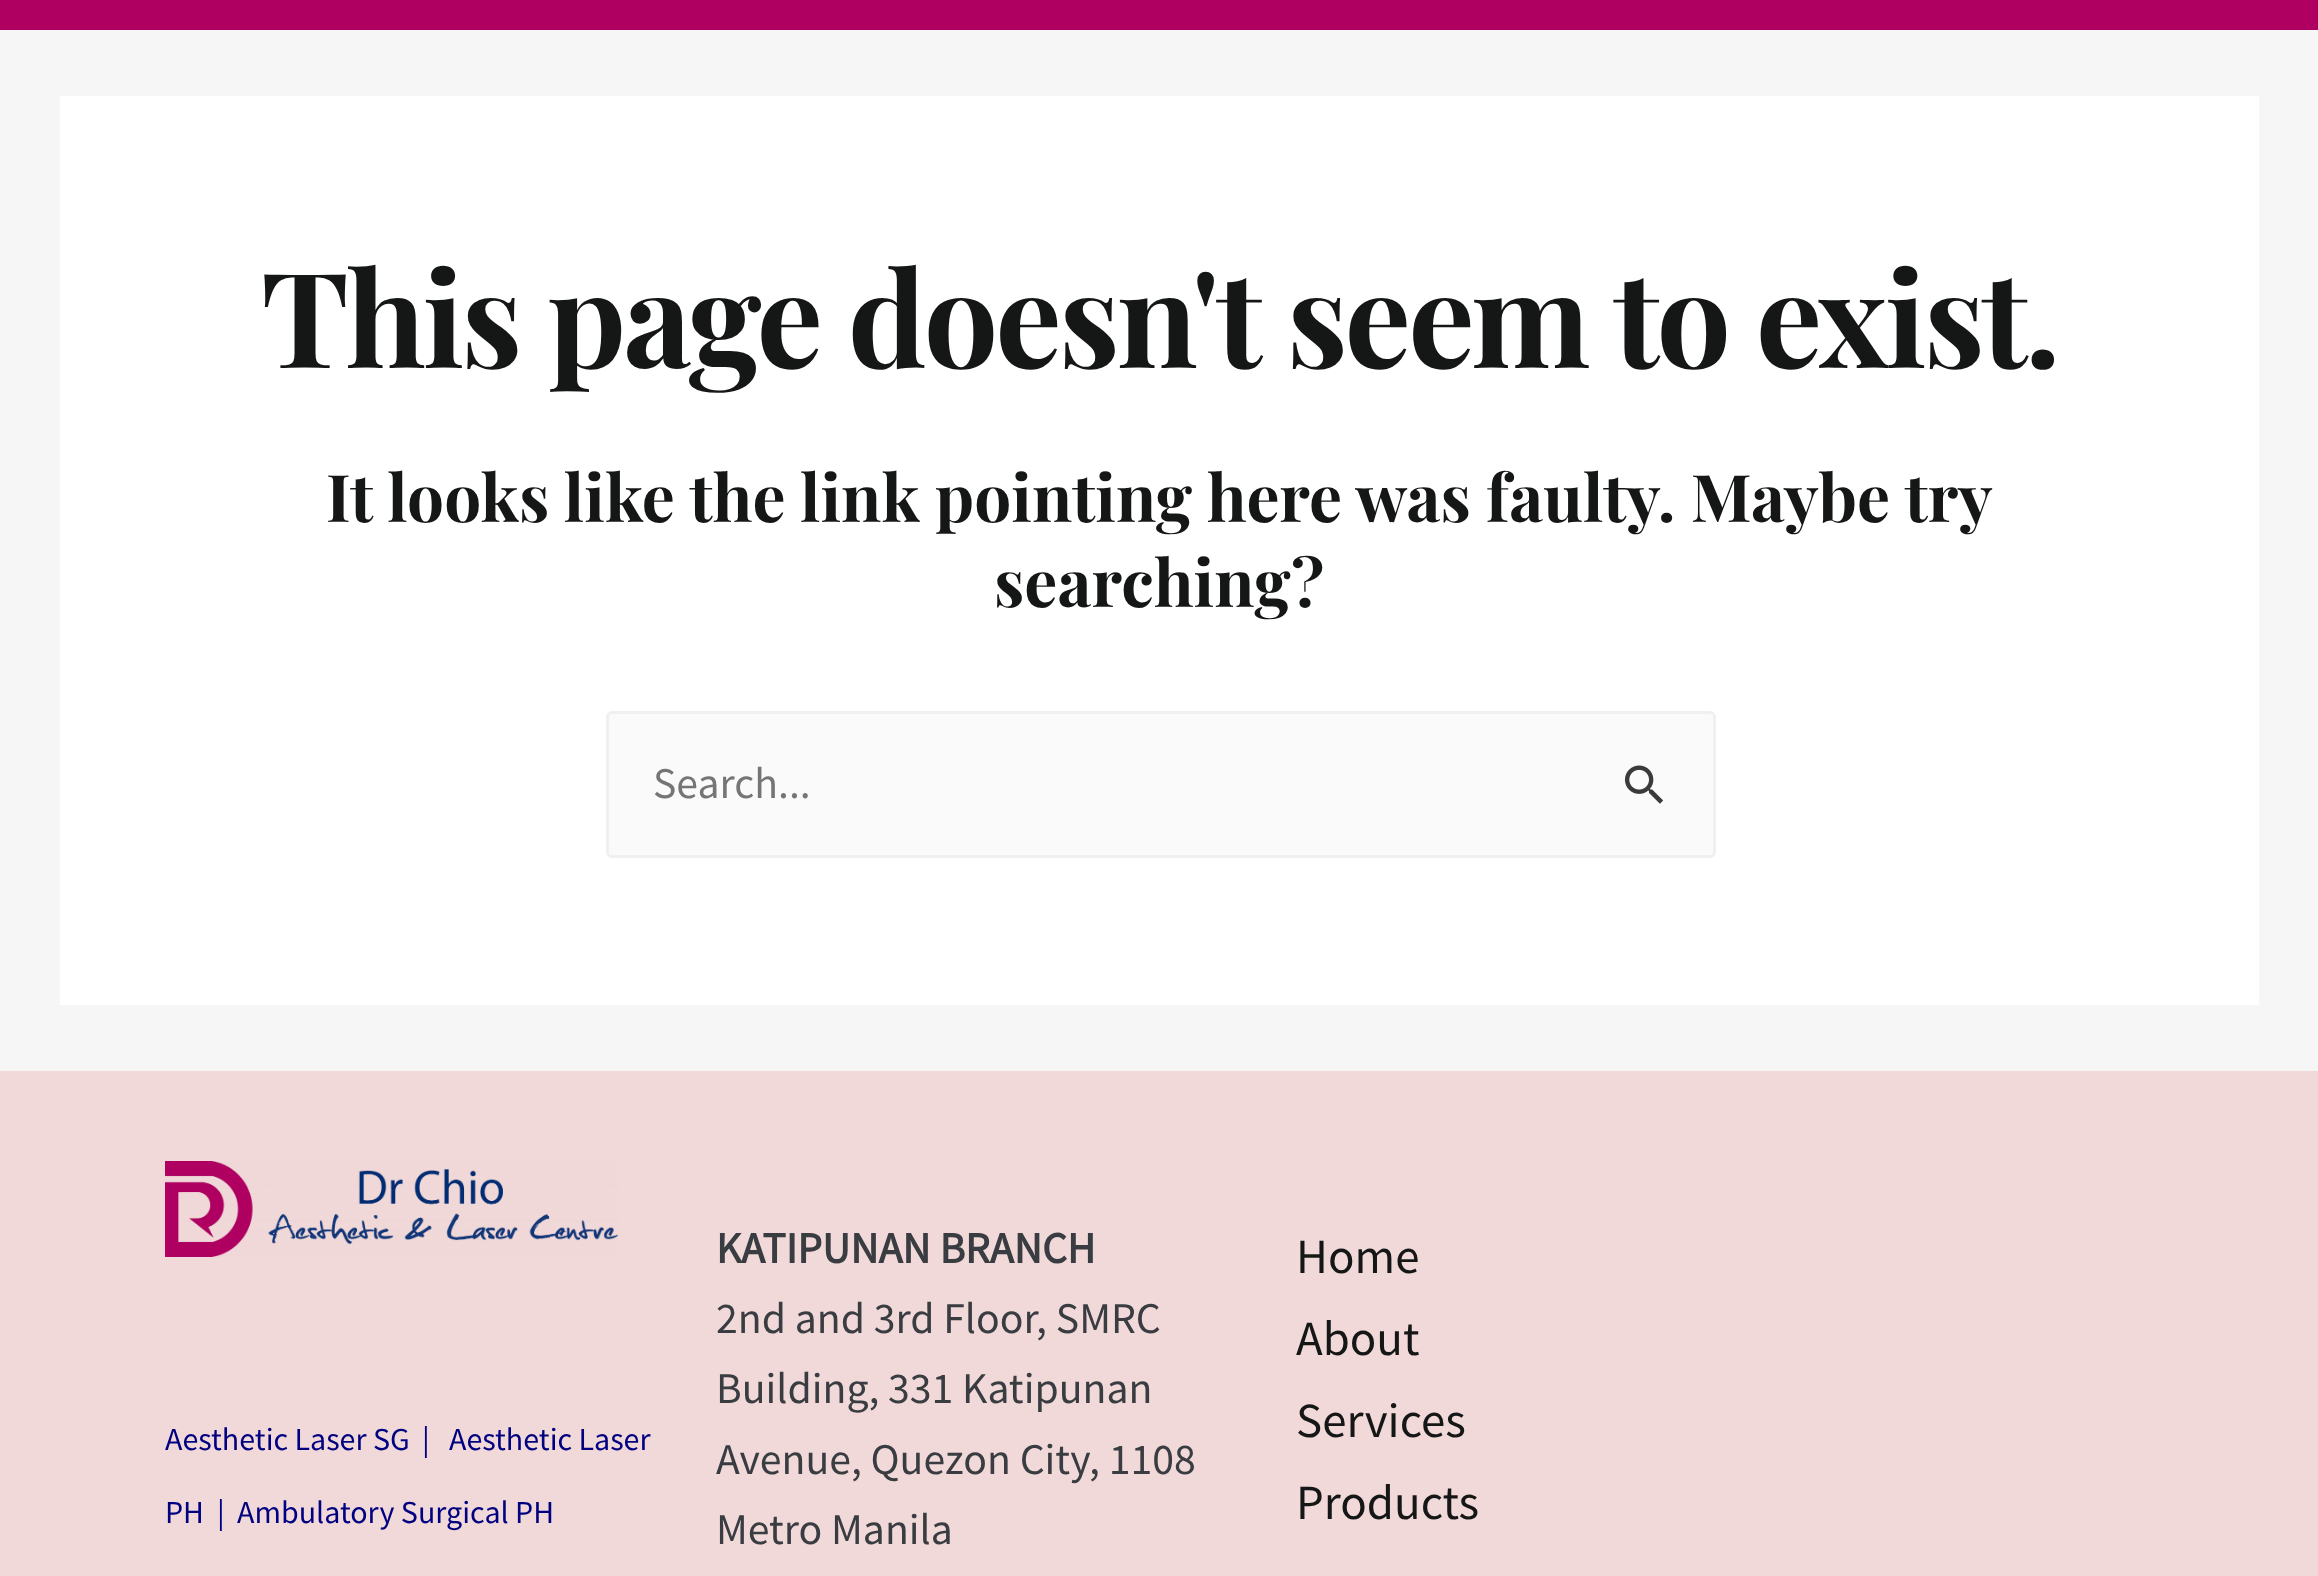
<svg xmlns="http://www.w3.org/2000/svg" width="2318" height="1576">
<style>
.a{font:bold 132px Playfair Display;letter-spacing:-3px;fill:#151616}
.b{font:bold 65.65px Playfair Display;fill:#151616}
.c{font:43.75px Source Sans Pro;fill:#757575}
.d{font:32px Source Sans Pro;fill:#000080}
.e{font:bold 43.75px Source Sans Pro;fill:#393c40}
.f{font:43.75px Source Sans Pro;fill:#393c40}
.g{font:49px Source Sans Pro;fill:#151616}
</style>
<rect width="100%" height="100%" fill="#f6f6f6"/>
<path fill="#af0061" d="M0 0h2318v30H0z"/>
<path fill="#fff" d="M60 96h2199v909H60z"/>
<rect fill="#fafafa" stroke="#f1f0f0" stroke-width="3" x="607.5" y="712.5" width="1107" height="144" rx="4.5"/>
<image href="1.png" x="1624" y="765" width="40" height="39"/>
<path fill="#f1d9d9" d="M0 1071h2318v505H0z"/>
<image href="2.png" x="165" y="1161" width="453" height="96"/>
<text class="a" x="261" y="368">This page doesn't seem to exist.</text>
<text class="b" x="326" y="522">It looks like the link pointing here was faulty. Maybe try</text>
<text class="b" x="994" y="607">searching?</text>
<text class="c" x="653" y="798">Search...</text>
<text class="d" x="165" y="1450">Aesthetic Laser SG</text>
<text class="d" x="422" y="1450">|</text>
<text class="d" x="449" y="1450">Aesthetic Laser</text>
<text class="d" x="165" y="1523">PH</text>
<text class="d" x="217" y="1523">|</text>
<text class="d" x="237" y="1523">Ambulatory Surgical PH</text>
<text class="e" x="716" y="1263">KATIPUNAN BRANCH</text>
<text class="f" x="716" y="1333">2nd and 3rd Floor, SMRC</text>
<text class="f" x="716" y="1403">Building, 331 Katipunan</text>
<text class="f" x="716" y="1474">Avenue, Quezon City, 1108</text>
<text class="f" x="716" y="1544">Metro Manila</text>
<text class="g" x="1296" y="1273">Home</text>
<text class="g" x="1296" y="1355">About</text>
<text class="g" x="1296" y="1437">Services</text>
<text class="g" x="1296" y="1519">Products</text>
</svg>
